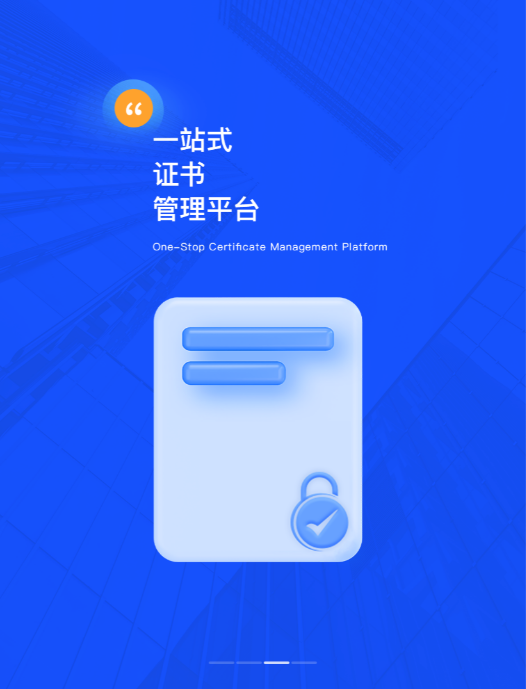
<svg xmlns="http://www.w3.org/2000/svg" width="526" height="689">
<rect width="100%" height="100%" fill="#fff"/>
<image href="1.png" x="0" y="0" width="526" height="689"/>
</svg>
